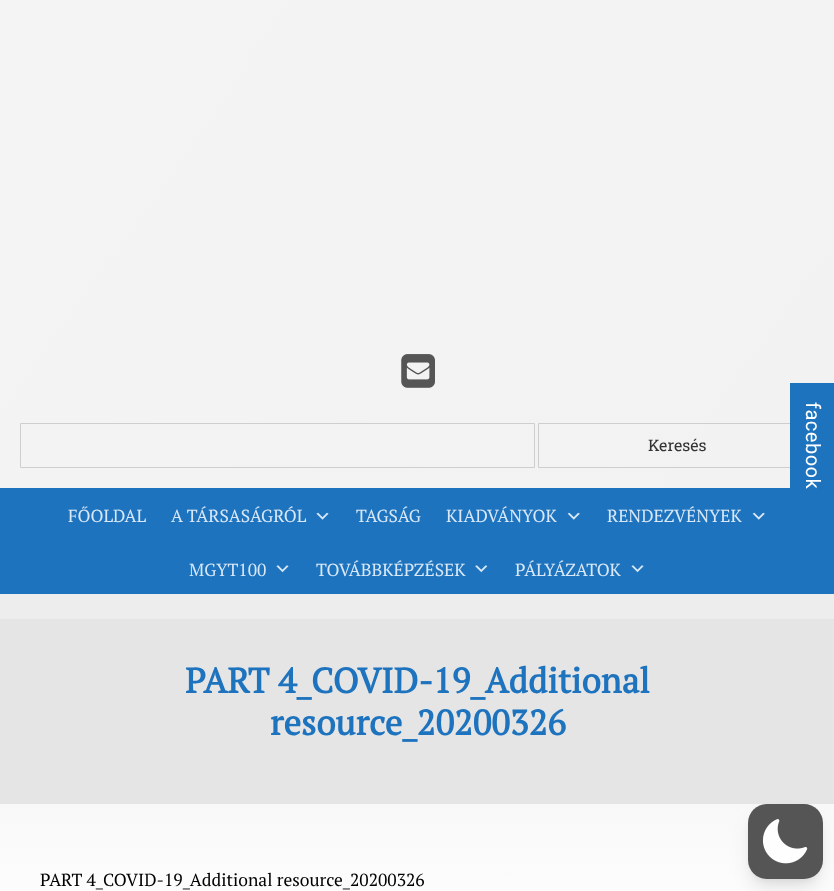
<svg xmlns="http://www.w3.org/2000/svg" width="834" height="891">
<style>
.a{font:16px Roboto Slab;fill:#333}
.b{font:17.5px PT Serif;fill:#d8e8f7}
.c{font:bold 35px PT Serif;fill:#1e73be}
.d{font:17.5px PT Serif;fill:#000}
.e{font:20px Roboto;letter-spacing:0.5px;fill:#fff}
</style>
<defs>
<linearGradient id="g1" gradientUnits="userSpaceOnUse" x1="-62" y1="-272" x2="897" y2="399"><stop offset="0" stop-color="#f4f4f4"/><stop offset="1" stop-color="#f2f2f2"/></linearGradient>
<linearGradient id="g2" gradientUnits="userSpaceOnUse" x1="418" y1="619" x2="418" y2="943"><stop offset="0" stop-color="#efefef"/><stop offset="1" stop-color="#fff"/></linearGradient>
</defs>
<rect width="100%" height="100%" fill="#ededed"/>
<path fill="url(#g1)" d="M0 0h834v488H0z"/>
<image href="1.png" x="401" y="354" width="34" height="34"/>
<path fill="none" stroke="#cecece" d="M20.5 423.5h514v44H20.5z"/>
<path fill="none" stroke="#cecece" d="M538.5 423.5h276v44H538.5z"/>
<path fill="#1e73be" d="M0 488h834v106H0z"/>
<image href="2.png" x="316" y="512" width="13" height="8"/>
<image href="3.png" x="567" y="512" width="13" height="8"/>
<image href="3.png" x="752" y="512" width="13" height="8"/>
<image href="4.png" x="276" y="565" width="13" height="8"/>
<image href="5.png" x="475" y="565" width="13" height="8"/>
<image href="4.png" x="631" y="565" width="13" height="8"/>
<path fill="url(#g2)" d="M0 804h834v87H0z"/>
<path fill="#e5e5e5" d="M0 619h834v185H0z"/>
<path fill="#1e73be" d="M790 383h44v105H790z"/>
<rect fill="#0000001a" filter="blur(4px)" x="753" y="814" width="65" height="65" rx="14"/>
<rect fill="#0000001a" filter="blur(9.5px)" x="751" y="820" width="68" height="68" rx="15"/>
<rect fill="#555" x="748" y="804" width="75" height="75" rx="19"/>
<image href="6.png" x="763" y="819" width="45" height="45"/>
<text class="a" x="648" y="451">Keresés</text>
<text class="b" x="68" y="522">FŐOLDAL</text>
<text class="b" x="171" y="522">A TÁRSASÁGRÓL</text>
<text class="b" x="356" y="522">TAGSÁG</text>
<text class="b" x="446" y="522">KIADVÁNYOK</text>
<text class="b" x="607" y="522">RENDEZVÉNYEK</text>
<text class="b" x="189" y="576">MGYT100</text>
<text class="b" x="316" y="576">TOVÁBBKÉPZÉSEK</text>
<text class="b" x="515" y="576">PÁLYÁZATOK</text>
<text class="c" x="185" y="693">PART 4_COVID-19_Additional</text>
<text class="c" x="270" y="735">resource_20200326</text>
<text class="d" x="40" y="886">PART 4_COVID-19_Additional resource_20200326</text>
<text class="e" x="806" y="402" transform="rotate(90 806 402)">facebook</text>
</svg>
